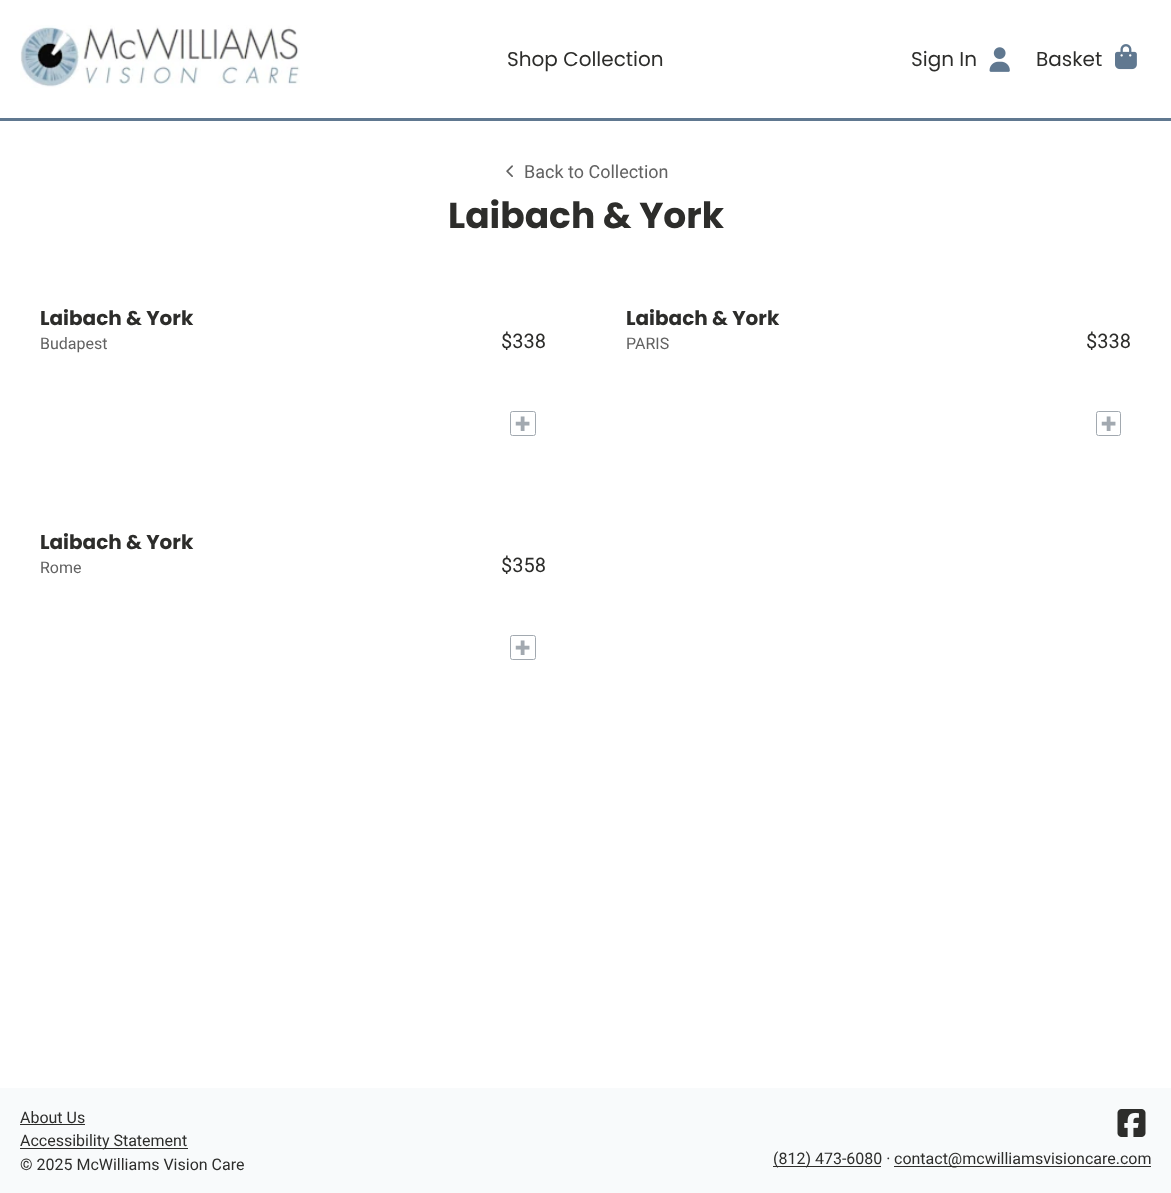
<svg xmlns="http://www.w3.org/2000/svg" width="1171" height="1193">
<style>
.a{font:20px Poppins;fill:#2d2d2b}
.b{font:18px Roboto;fill:#626262}
.c{font:bold 36px Poppins;fill:#2d2d2b}
.d{font:bold 20px Poppins;fill:#2d2d2b}
.e{font:16px Roboto;fill:#626262}
.f{font:20px Roboto;fill:#2d2d2b}
.g{font:bold 28px Roboto;fill:#a2a9b0}
.h{font:16px Roboto;fill:#2d2d2b}
</style>
<rect width="100%" height="100%" fill="#fff"/>
<path fill="#607890" d="M0 118h1171v3H0z"/>
<image href="1.png" x="20" y="25" width="280" height="63"/>
<image href="2.png" x="989" y="47" width="21" height="25"/>
<image href="3.png" x="1115" y="44" width="22" height="26"/>
<image href="4.png" x="506" y="165" width="7" height="12"/>
<rect fill="none" stroke="#a2a9b0" x="510.5" y="411.5" width="25" height="24" rx="2"/>
<rect fill="none" stroke="#a2a9b0" x="1096.5" y="411.5" width="24" height="24" rx="2"/>
<rect fill="none" stroke="#a2a9b0" x="510.5" y="635.5" width="25" height="24" rx="2"/>
<path fill="#f8fafb" d="M0 1088h1171v105H0z"/>
<path fill="#2d2d2b" d="M20 1124h65v1H20z"/>
<path fill="#2d2d2b" d="M20 1148h168v1H20z"/>
<image href="5.png" x="1117" y="1109" width="29" height="28"/>
<path fill="#2d2d2b" d="M773 1166h108v1H773z"/>
<path fill="#2d2d2b" d="M894 1166h257v1H894z"/>
<text class="a" x="507" y="66">Shop Collection</text>
<text class="a" x="911" y="66">Sign In</text>
<text class="a" x="1036" y="66">Basket</text>
<text class="b" x="524" y="178">Back to Collection</text>
<text class="c" x="448" y="228">Laibach &amp; York</text>
<text class="d" x="40" y="325">Laibach &amp; York</text>
<text class="e" x="40" y="349">Budapest</text>
<text class="f" x="501" y="348">$338</text>
<text class="g" x="515" y="433">+</text>
<text class="d" x="626" y="325">Laibach &amp; York</text>
<text class="e" x="626" y="349">PARIS</text>
<text class="f" x="1086" y="348">$338</text>
<text class="g" x="1101" y="433">+</text>
<text class="d" x="40" y="549">Laibach &amp; York</text>
<text class="e" x="40" y="573">Rome</text>
<text class="f" x="501" y="572">$358</text>
<text class="g" x="515" y="657">+</text>
<text class="h" x="20" y="1123">About Us</text>
<text class="h" x="20" y="1146">Accessibility Statement</text>
<text class="h" x="20" y="1170">© 2025 McWilliams Vision Care</text>
<text class="h" x="773" y="1164">(812) 473-6080 ·</text>
<text class="h" x="894" y="1164">contact@mcwilliamsvisioncare.com</text>
</svg>
